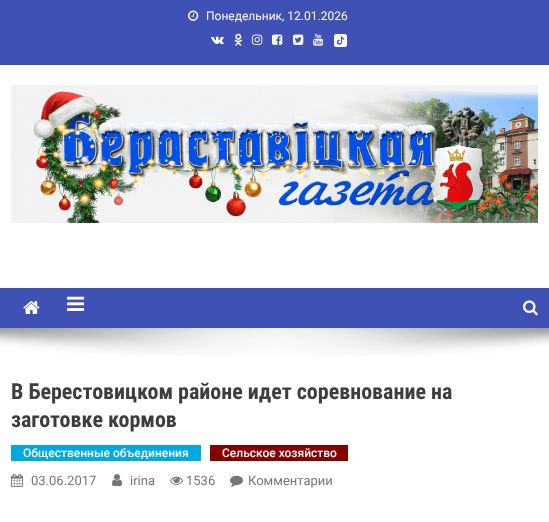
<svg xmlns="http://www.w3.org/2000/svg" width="549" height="522">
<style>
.a{font:12px Roboto;fill:#fff}
.b{font:12px 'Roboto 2';fill:#fff}
.c{font:bold 22px Roboto Condensed;fill:#3d3d3d}
.d{font:500 12px Roboto;fill:#fff}
.e{font:13px 'Roboto 2';fill:#767676}
.f{font:13px Roboto;fill:#767676}
</style>
<rect width="100%" height="100%" fill="#fff"/>
<path fill="#3f51b5" d="M0 0h549v65H0z"/>
<image href="1.png" x="188" y="10" width="11" height="11"/>
<image href="2.png" x="211" y="36" width="13" height="8"/>
<image href="3.png" x="234" y="33" width="8" height="13"/>
<image href="4.png" x="252" y="34" width="11" height="11"/>
<image href="5.png" x="272" y="34" width="11" height="11"/>
<image href="6.png" x="293" y="34" width="11" height="11"/>
<image href="7.png" x="313" y="33" width="11" height="13"/>
<image href="8.png" x="334" y="34" width="13" height="13"/>
<image href="9.png" x="11" y="85" width="527" height="138"/>
<path fill="#3f51b5" d="M0 288h549v40H0z"/>
<image href="10.png" x="23" y="301" width="17" height="13"/>
<image href="11.png" x="67" y="296" width="18" height="15"/>
<image href="12.png" x="523" y="300" width="15" height="16"/>
<image href="13.png" x="0" y="328" width="549" height="28"/>
<path fill="#00a9e0" d="M11 445h190v16H11z"/>
<path fill="#870000" d="M210 445h138v16H210z"/>
<image href="14.png" x="11" y="473" width="13" height="14"/>
<image href="15.png" x="112" y="474" width="10" height="12"/>
<image href="16.png" x="170" y="476" width="13" height="9"/>
<image href="17.png" x="230" y="475" width="13" height="12"/>
<text class="a" x="206" y="20">Понедельник</text>
<text class="b" x="282" y="20">, 12.01.2026</text>
<text class="c" x="11" y="399">В Берестовицком районе идет соревнование на</text>
<text class="c" x="11" y="427">заготовке кормов</text>
<text class="d" x="23" y="457">Общественные объединения</text>
<text class="d" x="222" y="457">Сельское хозяйство</text>
<text class="e" x="31" y="485">03.06.2017</text>
<text class="e" x="130" y="485">irina</text>
<text class="e" x="186" y="485">1536</text>
<text class="f" x="248" y="485">Комментарии</text>
</svg>
